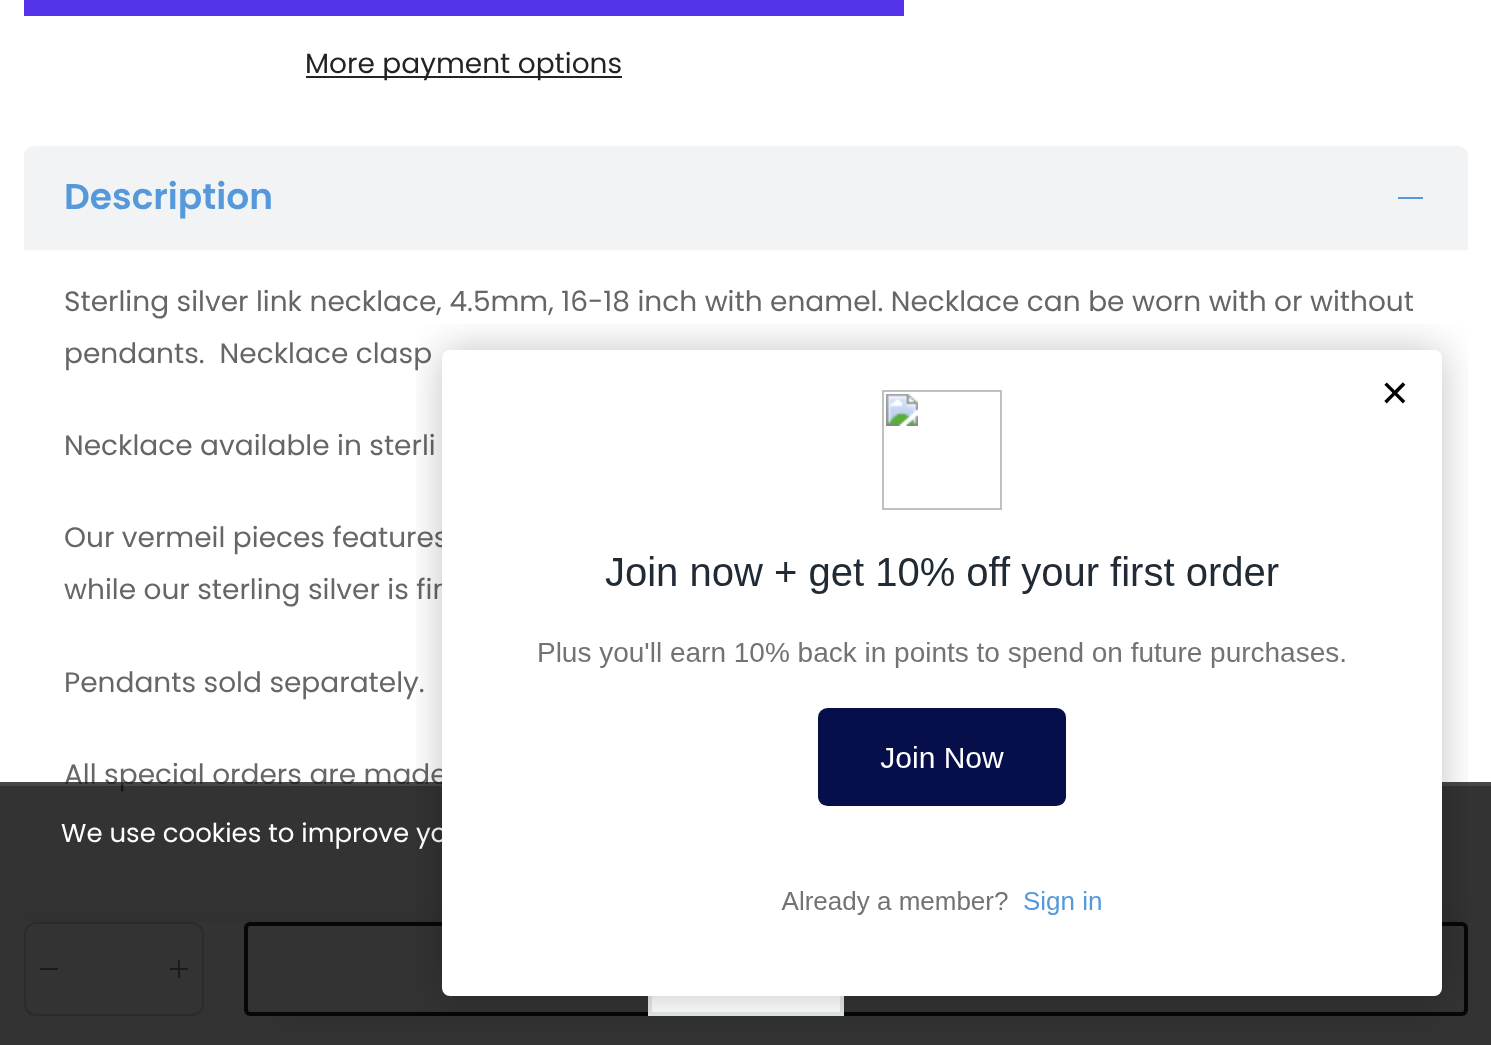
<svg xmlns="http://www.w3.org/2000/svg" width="1491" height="1045">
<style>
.a{font:28px Poppins;fill:#232323}
.b{font:600 36px Poppins;fill:#5599da}
.c{font:28px Poppins;fill:#666}
.d{font:26px Poppins;fill:#fff}
</style>
<defs>
<clipPath id="clip1"><path d="M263 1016h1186v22H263z"/></clipPath>
</defs>
<rect width="100%" height="100%" fill="#fff"/>
<path fill="#5433eb" d="M24 0h880v16H24z"/>
<path fill="#232323" d="M306 76h316v2H306z"/>
<path fill="#f2f3f5" d="M34 146h1424c5.5 0 10 4.5 10 10v94h-1444v-94c0-5.5 4.5-10 10-10z"/>
<path fill="#5599da" d="M1398 197h25v2H1398z"/>
<path fill="#0000000d" filter="blur(16px)" d="M0 912h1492v124H0z"/>
<path fill="#fff" d="M0 922h1491v123H0z"/>
<rect fill="none" stroke="#d7d7d7" stroke-width="2" x="25" y="923" width="178" height="92" rx="11"/>
<path fill="#888" d="M40 968h18v2H40z"/>
<path fill="#888" d="M170 968h18v2H170z"/>
<path fill="#888" d="M178 960h2v18H178z"/>
<g clip-path="url(#clip1)">
<path fill="#00000026" filter="blur(20px)" d="M274 982h1164v34H274z"/>
</g>
<rect fill="none" stroke="#232323" stroke-width="4" x="246" y="924" width="1220" height="90" rx="4"/>
<text class="a" x="305" y="73">More payment options</text>
<text class="b" x="64" y="209">Description</text>
<text class="c" x="64" y="311">Sterling silver link necklace, 4.5mm, 16-18 inch with enamel. Necklace can be worn with or without</text>
<text class="c" xml:space="preserve" x="64" y="363">pendants.  Necklace clasp</text>
<text class="c" x="64" y="455">Necklace available in sterli</text>
<text class="c" x="64" y="547">Our vermeil pieces features</text>
<text class="c" x="64" y="599">while our sterling silver is fin</text>
<text class="c" x="64" y="692">Pendants sold separately.</text>
<text class="c" x="64" y="784">All special orders are made</text>
<path fill="#000000cc" d="M0 782h1491v263H0z"/>
<path fill="#ffffff1a" d="M0 782h1491v4H0z"/>
<text class="d" x="61" y="842">We use cookies to improve yo</text>
<path fill="#fff" d="M652 996h188v16H652z"/>
<path fill="none" stroke="#e4eaec" stroke-width="4" d="M650 932h192v82H650z"/>
<image href="1.png" x="416" y="324" width="1052" height="692"/>
</svg>
